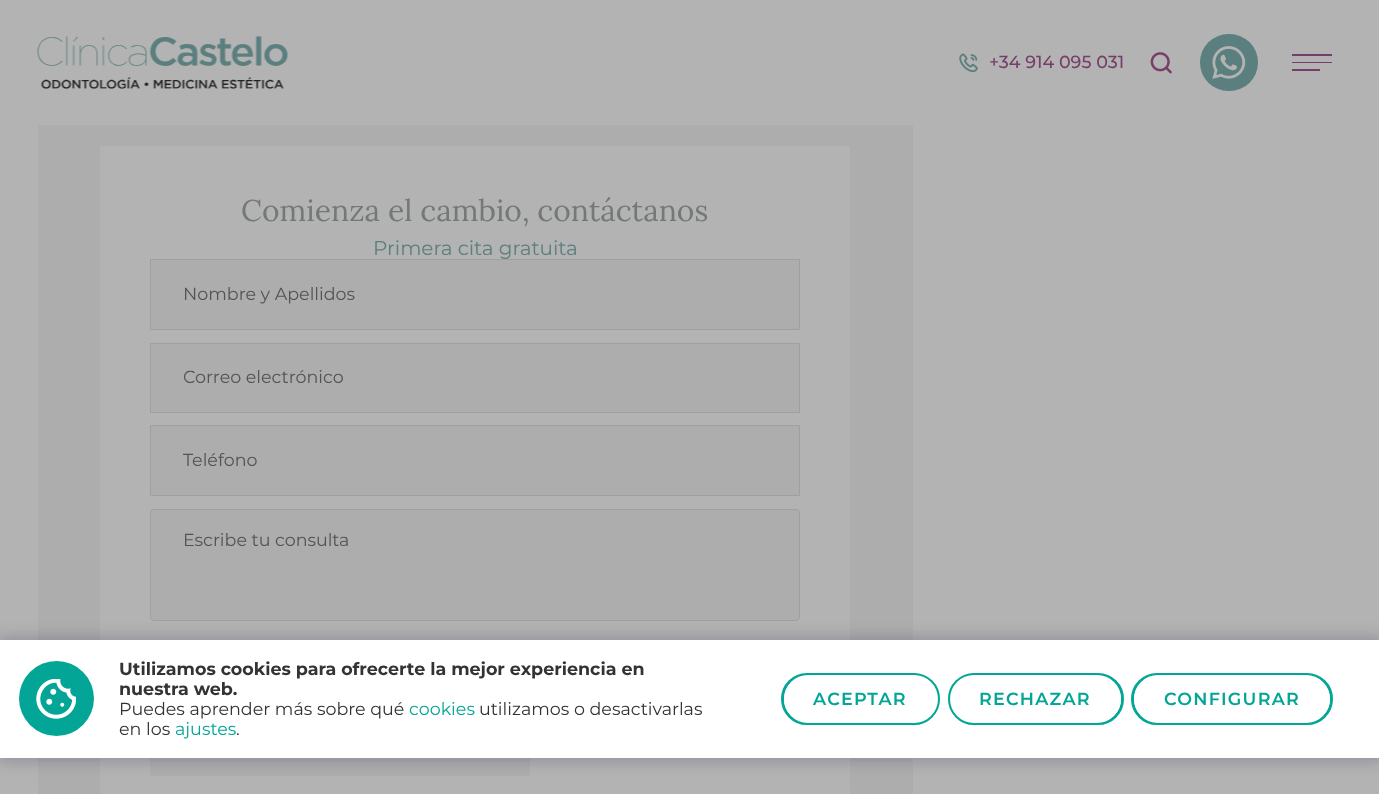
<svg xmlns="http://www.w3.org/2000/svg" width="1379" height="794">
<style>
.a{font:500 17.5px Montserrat;fill:#763e68}
.b{font:30px Lora;fill:#737a76}
.c{font:20px Montserrat;fill:#5b7f7e}
.d{font:17.5px Montserrat;fill:#525354}
.e{font:bold 17.5px Montserrat;fill:#333}
.f{font:17.5px Montserrat;fill:#333}
.g{font:17.5px Montserrat;fill:#03a696}
.h{font:600 17.5px Montserrat;letter-spacing:1.25px;fill:#03a696}
</style>
<rect width="100%" height="100%" fill="#b3b3b3"/>
<image href="1.png" x="37" y="36" width="251" height="53"/>
<image href="2.png" x="959" y="53" width="19" height="20"/>
<image href="3.png" x="1150" y="52" width="22" height="22"/>
<rect fill="#5b7f7e" x="1200" y="34" width="58" height="57" rx="28.5"/>
<image href="4.png" x="1212" y="46" width="34" height="33"/>
<path fill="#763e68" d="M1332 56h-40v-2h40zm0 7h-40v-1h40zm-12 8h-28v-2h28z"/>
<path fill="#adadad" d="M38 125h875v669H38z"/>
<path fill="#b3b3b3" d="M100 146h750v648H100z"/>
<path fill="#adadad" stroke="#9ca09e" d="M150.5 259.5h649v70H150.5z"/>
<path fill="#adadad" stroke="#9ca09e" d="M150.5 343.5h649v69H150.5z"/>
<path fill="#adadad" stroke="#9ca09e" d="M150.5 425.5h649v70H150.5z"/>
<rect fill="#adadad" stroke="#9ca09e" x="150.5" y="509.5" width="649" height="111" rx="3.5"/>
<path fill="#adadad" d="M150 758h380v18H150z"/>
<path fill="#32325d4d" filter="blur(8px)" d="M-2 638h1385v122H-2z"/>
<path fill="#fff" d="M0 640h1379v118H0z"/>
<circle fill="#03a696" cx="56.5" cy="698.5" r="37.5"/>
<image href="5.png" x="36" y="679" width="40" height="40"/>
<rect fill="none" stroke="#03a696" stroke-width="3" x="782.5" y="674.5" width="156" height="49" rx="24.5"/>
<rect fill="#fff" x="784" y="675" width="154" height="48" rx="24"/>
<rect fill="none" stroke="#03a696" stroke-width="3" x="949.5" y="674.5" width="173" height="49" rx="24.5"/>
<rect fill="#fff" x="950" y="675" width="171" height="48" rx="24"/>
<rect fill="none" stroke="#03a696" stroke-width="3" x="1132.5" y="674.5" width="199" height="49" rx="24.5"/>
<rect fill="#fff" x="1134" y="675" width="196" height="48" rx="24"/>
<text class="a" x="989" y="68">+34 914 095 031</text>
<text class="b" x="241" y="221">Comienza el cambio, contáctanos</text>
<text class="c" x="373" y="255">Primera cita gratuita</text>
<text class="d" x="183" y="300">Nombre y Apellidos</text>
<text class="d" x="183" y="383">Correo electrónico</text>
<text class="d" x="183" y="466">Teléfono</text>
<text class="d" x="183" y="546">Escribe tu consulta</text>
<text class="e" x="119" y="675">Utilizamos cookies para ofrecerte la mejor experiencia en</text>
<text class="e" x="119" y="695">nuestra web.</text>
<text class="f" x="119" y="715">Puedes aprender más sobre qué</text>
<text class="g" x="409" y="715">cookies</text>
<text class="f" x="479" y="715">utilizamos o desactivarlas</text>
<text class="f" x="119" y="735">en los</text>
<text class="g" x="175" y="735">ajustes</text>
<text class="f" x="236" y="735">.</text>
<text class="h" x="813" y="705">ACEPTAR</text>
<text class="h" x="979" y="705">RECHAZAR</text>
<text class="h" x="1164" y="705">CONFIGURAR</text>
</svg>
